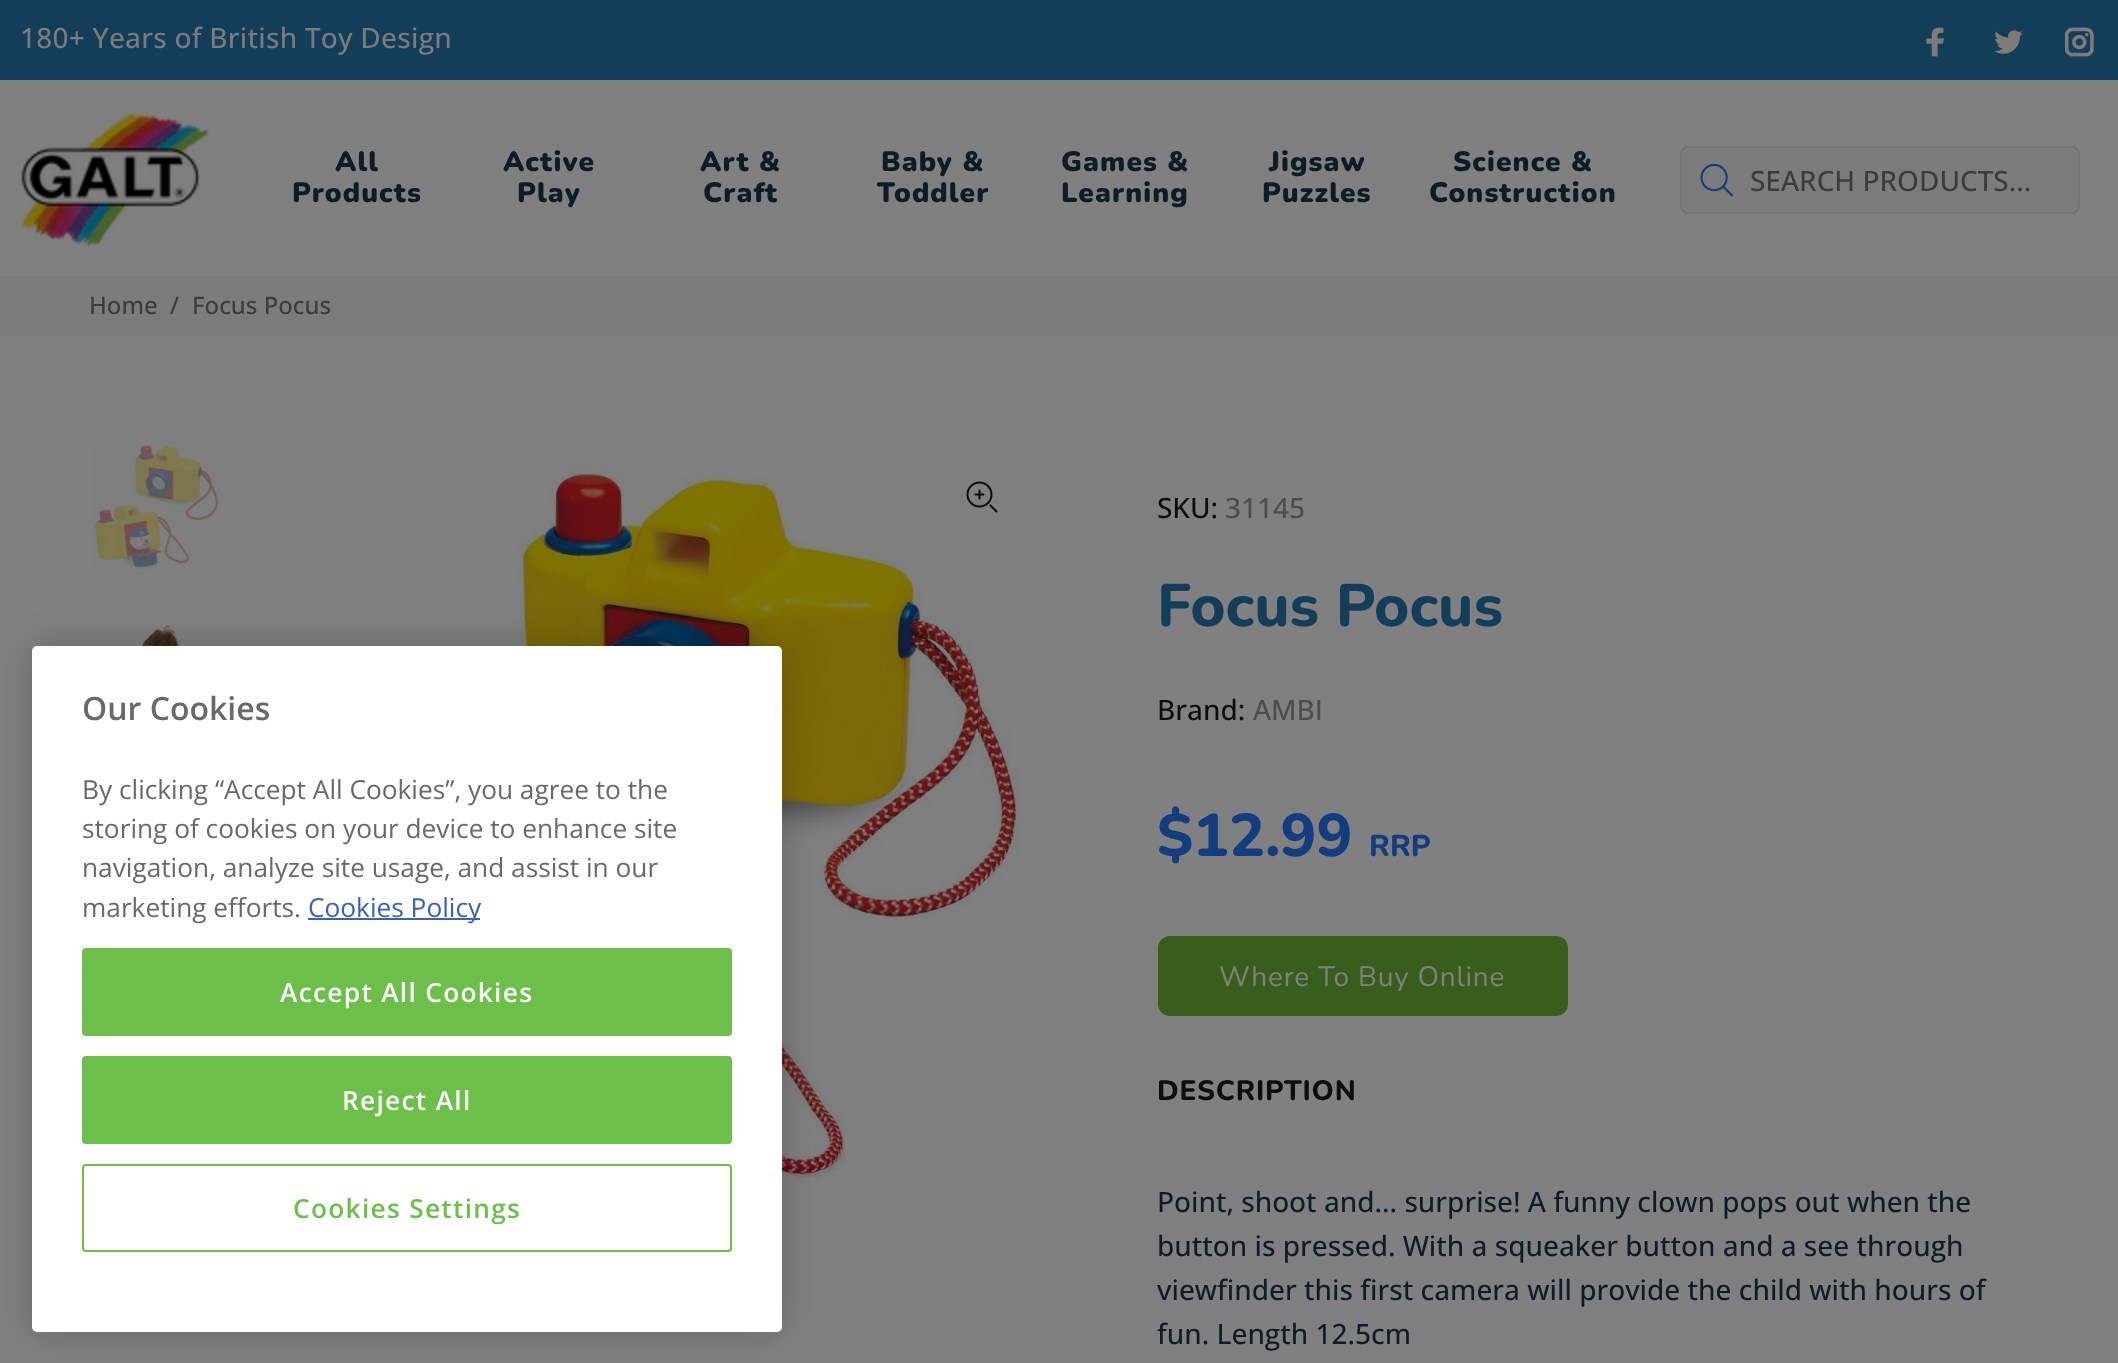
<svg xmlns="http://www.w3.org/2000/svg" width="2118" height="1363">
<style>
.a{font:500 28px Open Sans;letter-spacing:0.25px;fill:#7c7a7a}
.b{font:900 28px Nunito;letter-spacing:1.1px;fill:#0d1d27}
.c{font:500 28px Open Sans;fill:#3c3c3c}
.d{font:500 24px Open Sans;fill:#3c3c3c}
.e{font:600 32px Open Sans;fill:#696969}
.f{font:26.25px Open Sans;fill:#696969}
.g{font:26.25px Open Sans;fill:#3860be}
.h{font:600 26.25px Open Sans;letter-spacing:1.3px;fill:#fff}
.i{font:600 26.25px Open Sans;letter-spacing:1.3px;fill:#6cc04a}
.j{font:500 28px Open Sans;fill:#0d0d0d}
.k{font:500 28px Open Sans;fill:#4d4d4d}
.l{font:800 60px Nunito;fill:#123e59}
.m{font:800 60px Nunito;fill:#143d7f}
.n{font:800 30px Nunito;fill:#143d7f}
.o{font:28px Nunito;letter-spacing:0.8px;fill:#808080}
.p{font:800 28px Nunito;letter-spacing:0.8px;fill:#0d0d0d}
.q{font:500 28px Open Sans;fill:#0d1d27}
</style>
<rect width="100%" height="100%" fill="#808080"/>
<path fill="#123e59" d="M0 0h2118v80H0z"/>
<image href="1.png" x="1926" y="27" width="19" height="30"/>
<image href="2.png" x="1994" y="30" width="29" height="24"/>
<image href="3.png" x="2064" y="27" width="30" height="30"/>
<image href="4.png" x="20" y="112" width="190" height="136"/>
<rect fill="#7c7c7d" stroke="#757474" stroke-width="2" x="1681" y="147" width="398" height="66" rx="7"/>
<image href="5.png" x="1700" y="163" width="33" height="34"/>
<path fill="#7c7c7d" d="M0 276h2118v60H0z"/>
<image href="7.png" x="97" y="625" width="117" height="21"/>
<image href="8.png" x="278" y="467" width="745" height="745"/>
<rect fill="#00000033" filter="blur(18px)" x="32" y="646" width="750" height="686" rx="5"/>
<rect fill="#fff" x="32" y="646" width="750" height="686" rx="5"/>
<path fill="#3860be" d="M308 918h172v2H308z"/>
<rect fill="#6cc04a" stroke="#6cc04a" stroke-width="2" x="83" y="949" width="648" height="86" rx="3"/>
<rect fill="#6cc04a" stroke="#6cc04a" stroke-width="2" x="83" y="1057" width="648" height="86" rx="3"/>
<rect fill="none" stroke="#6cc04a" stroke-width="2" x="83" y="1165" width="648" height="86" rx="3"/>
<image href="6.png" x="93" y="444" width="127" height="126"/>
<image href="9.png" x="966" y="481" width="32" height="32"/>
<rect fill="#385e1c" x="1158" y="936" width="410" height="80" rx="12"/>
<text class="a" x="20" y="48">180+ Years of British Toy Design</text>
<text class="b" x="335" y="171">All</text>
<text class="b" x="292" y="202">Products</text>
<text class="b" x="503" y="171">Active</text>
<text class="b" x="517" y="202">Play</text>
<text class="b" x="700" y="171">Art &amp;</text>
<text class="b" x="703" y="202">Craft</text>
<text class="b" x="881" y="171">Baby &amp;</text>
<text class="b" x="877" y="202">Toddler</text>
<text class="b" x="1061" y="171">Games &amp;</text>
<text class="b" x="1061" y="202">Learning</text>
<text class="b" x="1269" y="171">Jigsaw</text>
<text class="b" x="1262" y="202">Puzzles</text>
<text class="b" x="1453" y="171">Science &amp;</text>
<text class="b" x="1429" y="202">Construction</text>
<text class="c" x="1750" y="191">SEARCH PRODUCTS...</text>
<text class="d" x="89" y="314">Home</text>
<text class="d" x="170" y="314">/</text>
<text class="d" x="192" y="314">Focus Pocus</text>
<text class="e" x="82" y="720">Our Cookies</text>
<text class="f" x="82" y="799">By clicking “Accept All Cookies”, you agree to the</text>
<text class="f" x="82" y="838">storing of cookies on your device to enhance site</text>
<text class="f" x="82" y="877">navigation, analyze site usage, and assist in our</text>
<text class="f" x="82" y="917">marketing efforts.</text>
<text class="g" x="308" y="917">Cookies Policy</text>
<text class="h" x="280" y="1002">Accept All Cookies</text>
<text class="h" x="342" y="1110">Reject All</text>
<text class="i" x="293" y="1218">Cookies Settings</text>
<text class="j" x="1157" y="518">SKU:</text>
<text class="k" x="1225" y="518">31145</text>
<text class="l" x="1157" y="626">Focus Pocus</text>
<text class="j" x="1157" y="720">Brand:</text>
<text class="k" x="1253" y="720">AMBI</text>
<text class="m" x="1157" y="856">$12.99</text>
<text class="n" x="1369" y="856">RRP</text>
<text class="o" x="1219" y="986">Where To Buy Online</text>
<text class="p" x="1157" y="1100">DESCRIPTION</text>
<text class="q" x="1157" y="1212">Point, shoot and... surprise! A funny clown pops out when the</text>
<text class="q" x="1157" y="1256">button is pressed. With a squeaker button and a see through</text>
<text class="q" x="1157" y="1300">viewfinder this first camera will provide the child with hours of</text>
<text class="q" x="1157" y="1344">fun. Length 12.5cm</text>
</svg>
